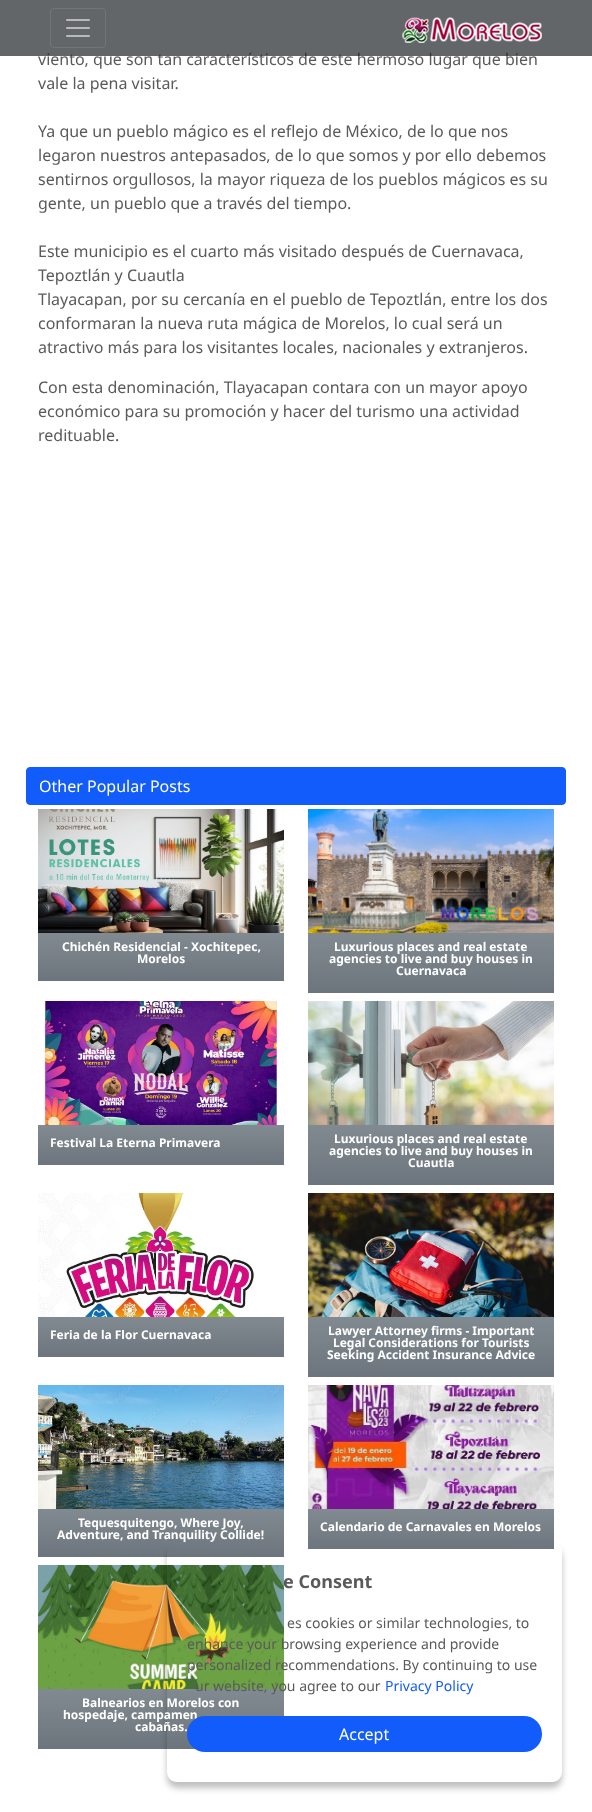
<svg xmlns="http://www.w3.org/2000/svg" width="592" height="1812">
<style>
.a{font:16px Noto Sans;fill:#5a5a5a}
.b{font:16px Noto Sans;fill:#fff}
.c{font:bold 12px Noto Sans;fill:#fff}
.d{font:bold 18px Noto Sans;fill:#5a5a5a}
.e{font:14px Noto Sans;fill:#5a5a5a}
.f{font:14px Noto Sans;fill:#115cfa}
</style>
<defs>
<linearGradient id="g1" gradientUnits="userSpaceOnUse" x1="161" y1="933" x2="161" y2="981"><stop offset="0" stop-color="#828a91"/><stop offset="1" stop-color="#6c757d"/></linearGradient>
<linearGradient id="g2" gradientUnits="userSpaceOnUse" x1="431" y1="933" x2="431" y2="993"><stop offset="0" stop-color="#828a91"/><stop offset="1" stop-color="#6c757d"/></linearGradient>
<linearGradient id="g3" gradientUnits="userSpaceOnUse" x1="161" y1="1125" x2="161" y2="1165"><stop offset="0" stop-color="#828a91"/><stop offset="1" stop-color="#6c757d"/></linearGradient>
<linearGradient id="g4" gradientUnits="userSpaceOnUse" x1="431" y1="1125" x2="431" y2="1185"><stop offset="0" stop-color="#828a91"/><stop offset="1" stop-color="#6c757d"/></linearGradient>
<linearGradient id="g5" gradientUnits="userSpaceOnUse" x1="161" y1="1317" x2="161" y2="1357"><stop offset="0" stop-color="#828a91"/><stop offset="1" stop-color="#6c757d"/></linearGradient>
<linearGradient id="g6" gradientUnits="userSpaceOnUse" x1="431" y1="1317" x2="431" y2="1377"><stop offset="0" stop-color="#828a91"/><stop offset="1" stop-color="#6c757d"/></linearGradient>
<linearGradient id="g7" gradientUnits="userSpaceOnUse" x1="161" y1="1509" x2="161" y2="1557"><stop offset="0" stop-color="#828a91"/><stop offset="1" stop-color="#6c757d"/></linearGradient>
<linearGradient id="g8" gradientUnits="userSpaceOnUse" x1="431" y1="1509" x2="431" y2="1549"><stop offset="0" stop-color="#828a91"/><stop offset="1" stop-color="#6c757d"/></linearGradient>
<linearGradient id="g9" gradientUnits="userSpaceOnUse" x1="161" y1="1689" x2="161" y2="1749"><stop offset="0" stop-color="#828a91"/><stop offset="1" stop-color="#6c757d"/></linearGradient>
<clipPath id="clip1"><path d="M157 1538h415v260h-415zm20 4h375c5.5 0 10 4.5 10 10v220c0 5.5-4.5 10-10 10h-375c-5.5 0-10-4.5-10-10v-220c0-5.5 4.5-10 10-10z" clip-rule="evenodd"/></clipPath>
</defs>
<rect width="100%" height="100%" fill="#fff"/>
<rect fill="#115cfa" stroke="#115cfa" x="26.5" y="767.5" width="539" height="37" rx="3.5"/>
<image href="3.png" x="38" y="809" width="246" height="124"/>
<path fill="url(#g1)" d="M38 933h246v48H38z"/>
<image href="4.png" x="308" y="809" width="246" height="124"/>
<path fill="url(#g2)" d="M308 933h246v60H308z"/>
<image href="5.png" x="43" y="1001" width="236" height="124"/>
<path fill="url(#g3)" d="M38 1125h246v40H38z"/>
<image href="6.png" x="308" y="1001" width="246" height="124"/>
<path fill="url(#g4)" d="M308 1125h246v60H308z"/>
<image href="7.png" x="38" y="1193" width="216" height="124"/>
<path fill="url(#g5)" d="M38 1317h246v40H38z"/>
<image href="8.png" x="308" y="1193" width="246" height="124"/>
<path fill="url(#g6)" d="M308 1317h246v60H308z"/>
<image href="9.png" x="38" y="1385" width="246" height="124"/>
<path fill="url(#g7)" d="M38 1509h246v48H38z"/>
<image href="10.png" x="308" y="1385" width="246" height="124"/>
<path fill="url(#g8)" d="M308 1509h246v40H308z"/>
<image href="11.png" x="38" y="1565" width="246" height="124"/>
<path fill="url(#g9)" d="M38 1689h246v60H38z"/>
<g clip-path="url(#clip1)">
<rect fill="#00000040" filter="blur(3px)" x="167" y="1548" width="395" height="240" rx="10"/>
</g>
<text class="a" x="38" y="65">viento, que son tan característicos de este hermoso lugar que bien</text>
<path fill="#212529b3" d="M0 0h592v56H0z"/>
<image href="2.png" x="402" y="17" width="140" height="26"/>
<rect fill="none" stroke="#ffffff1a" x="50.5" y="8.5" width="55" height="39" rx="3.5"/>
<image href="1.png" x="66" y="19" width="24" height="18"/>
<text class="a" x="38" y="89">vale la pena visitar.</text>
<text class="a" x="38" y="137">Ya que un pueblo mágico es el reflejo de México, de lo que nos</text>
<text class="a" x="38" y="161">legaron nuestros antepasados, de lo que somos y por ello debemos</text>
<text class="a" x="38" y="185">sentirnos orgullosos, la mayor riqueza de los pueblos mágicos es su</text>
<text class="a" x="38" y="209">gente, un pueblo que a través del tiempo.</text>
<text class="a" x="38" y="257">Este municipio es el cuarto más visitado después de Cuernavaca,</text>
<text class="a" x="38" y="281">Tepoztlán y Cuautla</text>
<text class="a" x="38" y="305">Tlayacapan, por su cercanía en el pueblo de Tepoztlán, entre los dos</text>
<text class="a" x="38" y="329">conformaran la nueva ruta mágica de Morelos, lo cual será un</text>
<text class="a" x="38" y="353">atractivo más para los visitantes locales, nacionales y extranjeros.</text>
<text class="a" x="38" y="393">Con esta denominación, Tlayacapan contara con un mayor apoyo</text>
<text class="a" x="38" y="417">económico para su promoción y hacer del turismo una actividad</text>
<text class="a" x="38" y="441">redituable.</text>
<text class="b" x="39" y="792">Other Popular Posts</text>
<text class="c" x="62" y="951">Chichén Residencial - Xochitepec,</text>
<text class="c" x="137" y="963">Morelos</text>
<text class="c" x="334" y="951">Luxurious places and real estate</text>
<text class="c" x="329" y="963">agencies to live and buy houses in</text>
<text class="c" x="396" y="975">Cuernavaca</text>
<text class="c" x="50" y="1147">Festival La Eterna Primavera</text>
<text class="c" x="334" y="1143">Luxurious places and real estate</text>
<text class="c" x="329" y="1155">agencies to live and buy houses in</text>
<text class="c" x="408" y="1167">Cuautla</text>
<text class="c" x="50" y="1339">Feria de la Flor Cuernavaca</text>
<text class="c" x="328" y="1335">Lawyer Attorney firms - Important</text>
<text class="c" x="333" y="1347">Legal Considerations for Tourists</text>
<text class="c" x="327" y="1359">Seeking Accident Insurance Advice</text>
<text class="c" x="78" y="1527">Tequesquitengo, Where Joy,</text>
<text class="c" x="57" y="1539">Adventure, and Tranquility Collide!</text>
<text class="c" x="320" y="1531">Calendario de Carnavales en Morelos</text>
<text class="c" x="82" y="1707">Balnearios en Morelos con</text>
<text class="c" x="63" y="1719">hospedaje, campamen</text>
<text class="c" x="135" y="1731">cabañas.</text>
<text class="d" x="283" y="1588">e Consent</text>
<text class="e" x="287" y="1628">es cookies or similar technologies, to</text>
<text class="e" x="187" y="1649">enhance your browsing experience and provide</text>
<text class="e" x="187" y="1670">personalized recommendations. By continuing to use</text>
<text class="e" x="195" y="1691">ur website, you agree to our</text>
<text class="f" x="385" y="1691">Privacy Policy</text>
<rect fill="#115cfa" x="187" y="1716" width="355" height="36" rx="18"/>
<text class="b" x="339" y="1740">Accept</text>
</svg>
